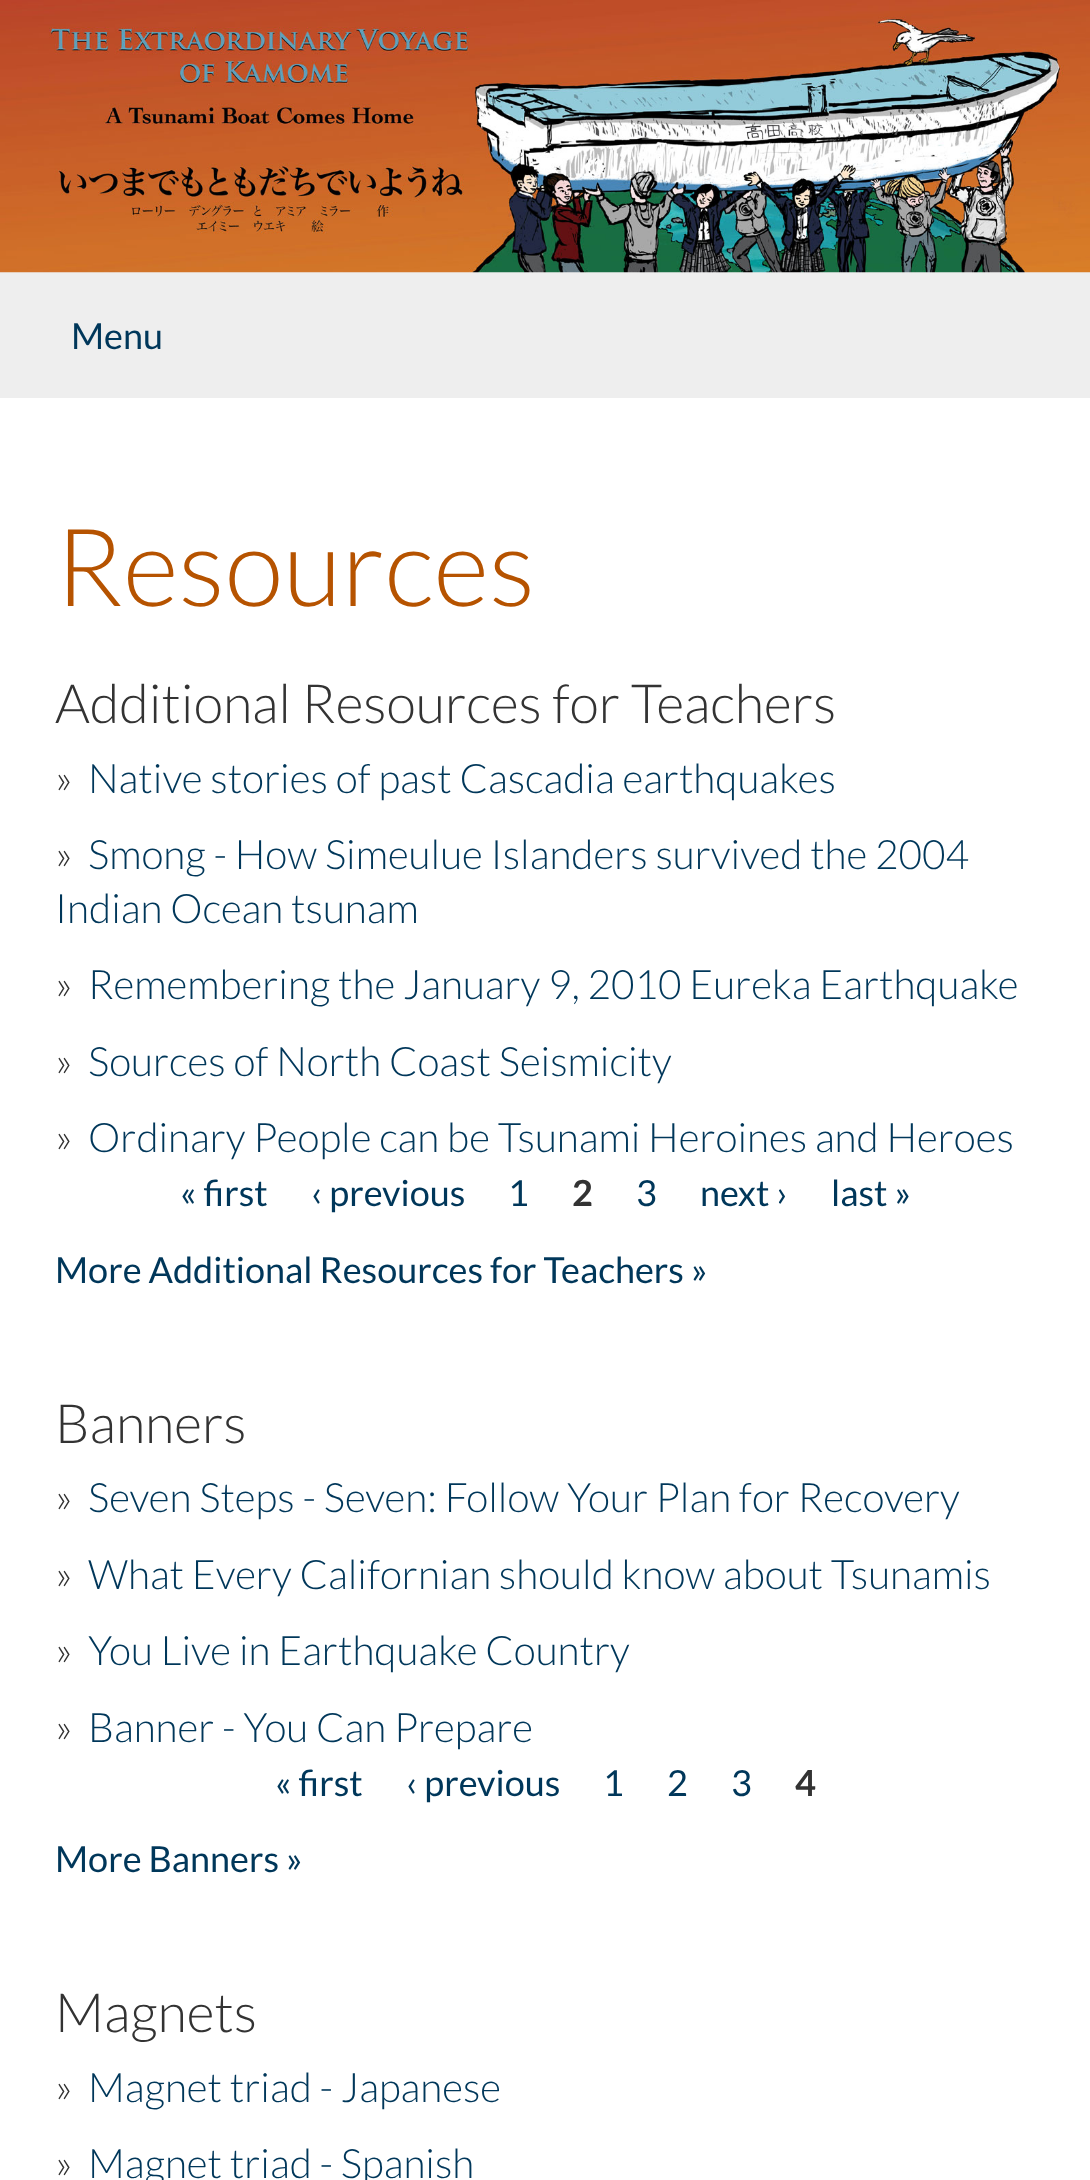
<svg xmlns="http://www.w3.org/2000/svg" width="1090" height="2180">
<style>
.a{font:36px Lato;fill:#00375a}
.b{font:300 108px Lato;fill:#b65300}
.c{font:300 54px Lato;fill:#333}
.d{font:300 40.5px Lato;fill:#333}
.e{font:300 40.5px Lato;fill:#00375a}
.f{font:bold 36px Lato;fill:#333}
</style>
<rect width="100%" height="100%" fill="#fff"/>
<path fill="#eee" d="M0 272h1090v126H0z"/>
<image href="1.png" x="0" y="0" width="1090" height="273"/>
<text class="a" x="71" y="349">Menu</text>
<text class="b" x="55" y="606">Resources</text>
<text class="c" x="55" y="723">Additional Resources for Teachers</text>
<text class="d" x="55" y="793">»</text>
<text class="e" x="88" y="793">Native stories of past Cascadia earthquakes</text>
<text class="d" x="55" y="869">»</text>
<text class="e" x="88" y="869">Smong - How Simeulue Islanders survived the 2004</text>
<text class="e" x="55" y="923">Indian Ocean tsunam</text>
<text class="d" x="55" y="999">»</text>
<text class="e" x="88" y="999">Remembering the January 9, 2010 Eureka Earthquake</text>
<text class="d" x="55" y="1076">»</text>
<text class="e" x="88" y="1076">Sources of North Coast Seismicity</text>
<text class="d" x="55" y="1152">»</text>
<text class="e" x="88" y="1152">Ordinary People can be Tsunami Heroines and Heroes</text>
<text class="a" x="180" y="1206">« first</text>
<text class="a" x="311" y="1206">‹ previous</text>
<text class="a" x="508" y="1206">1</text>
<text class="f" x="572" y="1206">2</text>
<text class="a" x="636" y="1206">3</text>
<text class="a" x="700" y="1206">next ›</text>
<text class="a" x="831" y="1206">last »</text>
<text class="a" x="55" y="1283">More Additional Resources for Teachers »</text>
<text class="c" x="55" y="1443">Banners</text>
<text class="d" x="55" y="1512">»</text>
<text class="e" x="88" y="1512">Seven Steps - Seven: Follow Your Plan for Recovery</text>
<text class="d" x="55" y="1589">»</text>
<text class="e" x="88" y="1589">What Every Californian should know about Tsunamis</text>
<text class="d" x="55" y="1665">»</text>
<text class="e" x="88" y="1665">You Live in Earthquake Country</text>
<text class="d" x="55" y="1742">»</text>
<text class="e" x="88" y="1742">Banner - You Can Prepare</text>
<text class="a" x="275" y="1796">« first</text>
<text class="a" x="406" y="1796">‹ previous</text>
<text class="a" x="603" y="1796">1</text>
<text class="a" x="667" y="1796">2</text>
<text class="a" x="731" y="1796">3</text>
<text class="f" x="795" y="1796">4</text>
<text class="a" x="55" y="1872">More Banners »</text>
<text class="c" x="55" y="2032">Magnets</text>
<text class="d" x="55" y="2102">»</text>
<text class="e" x="88" y="2102">Magnet triad - Japanese</text>
<text class="d" x="55" y="2178">»</text>
<text class="e" x="88" y="2178">Magnet triad - Spanish</text>
</svg>
